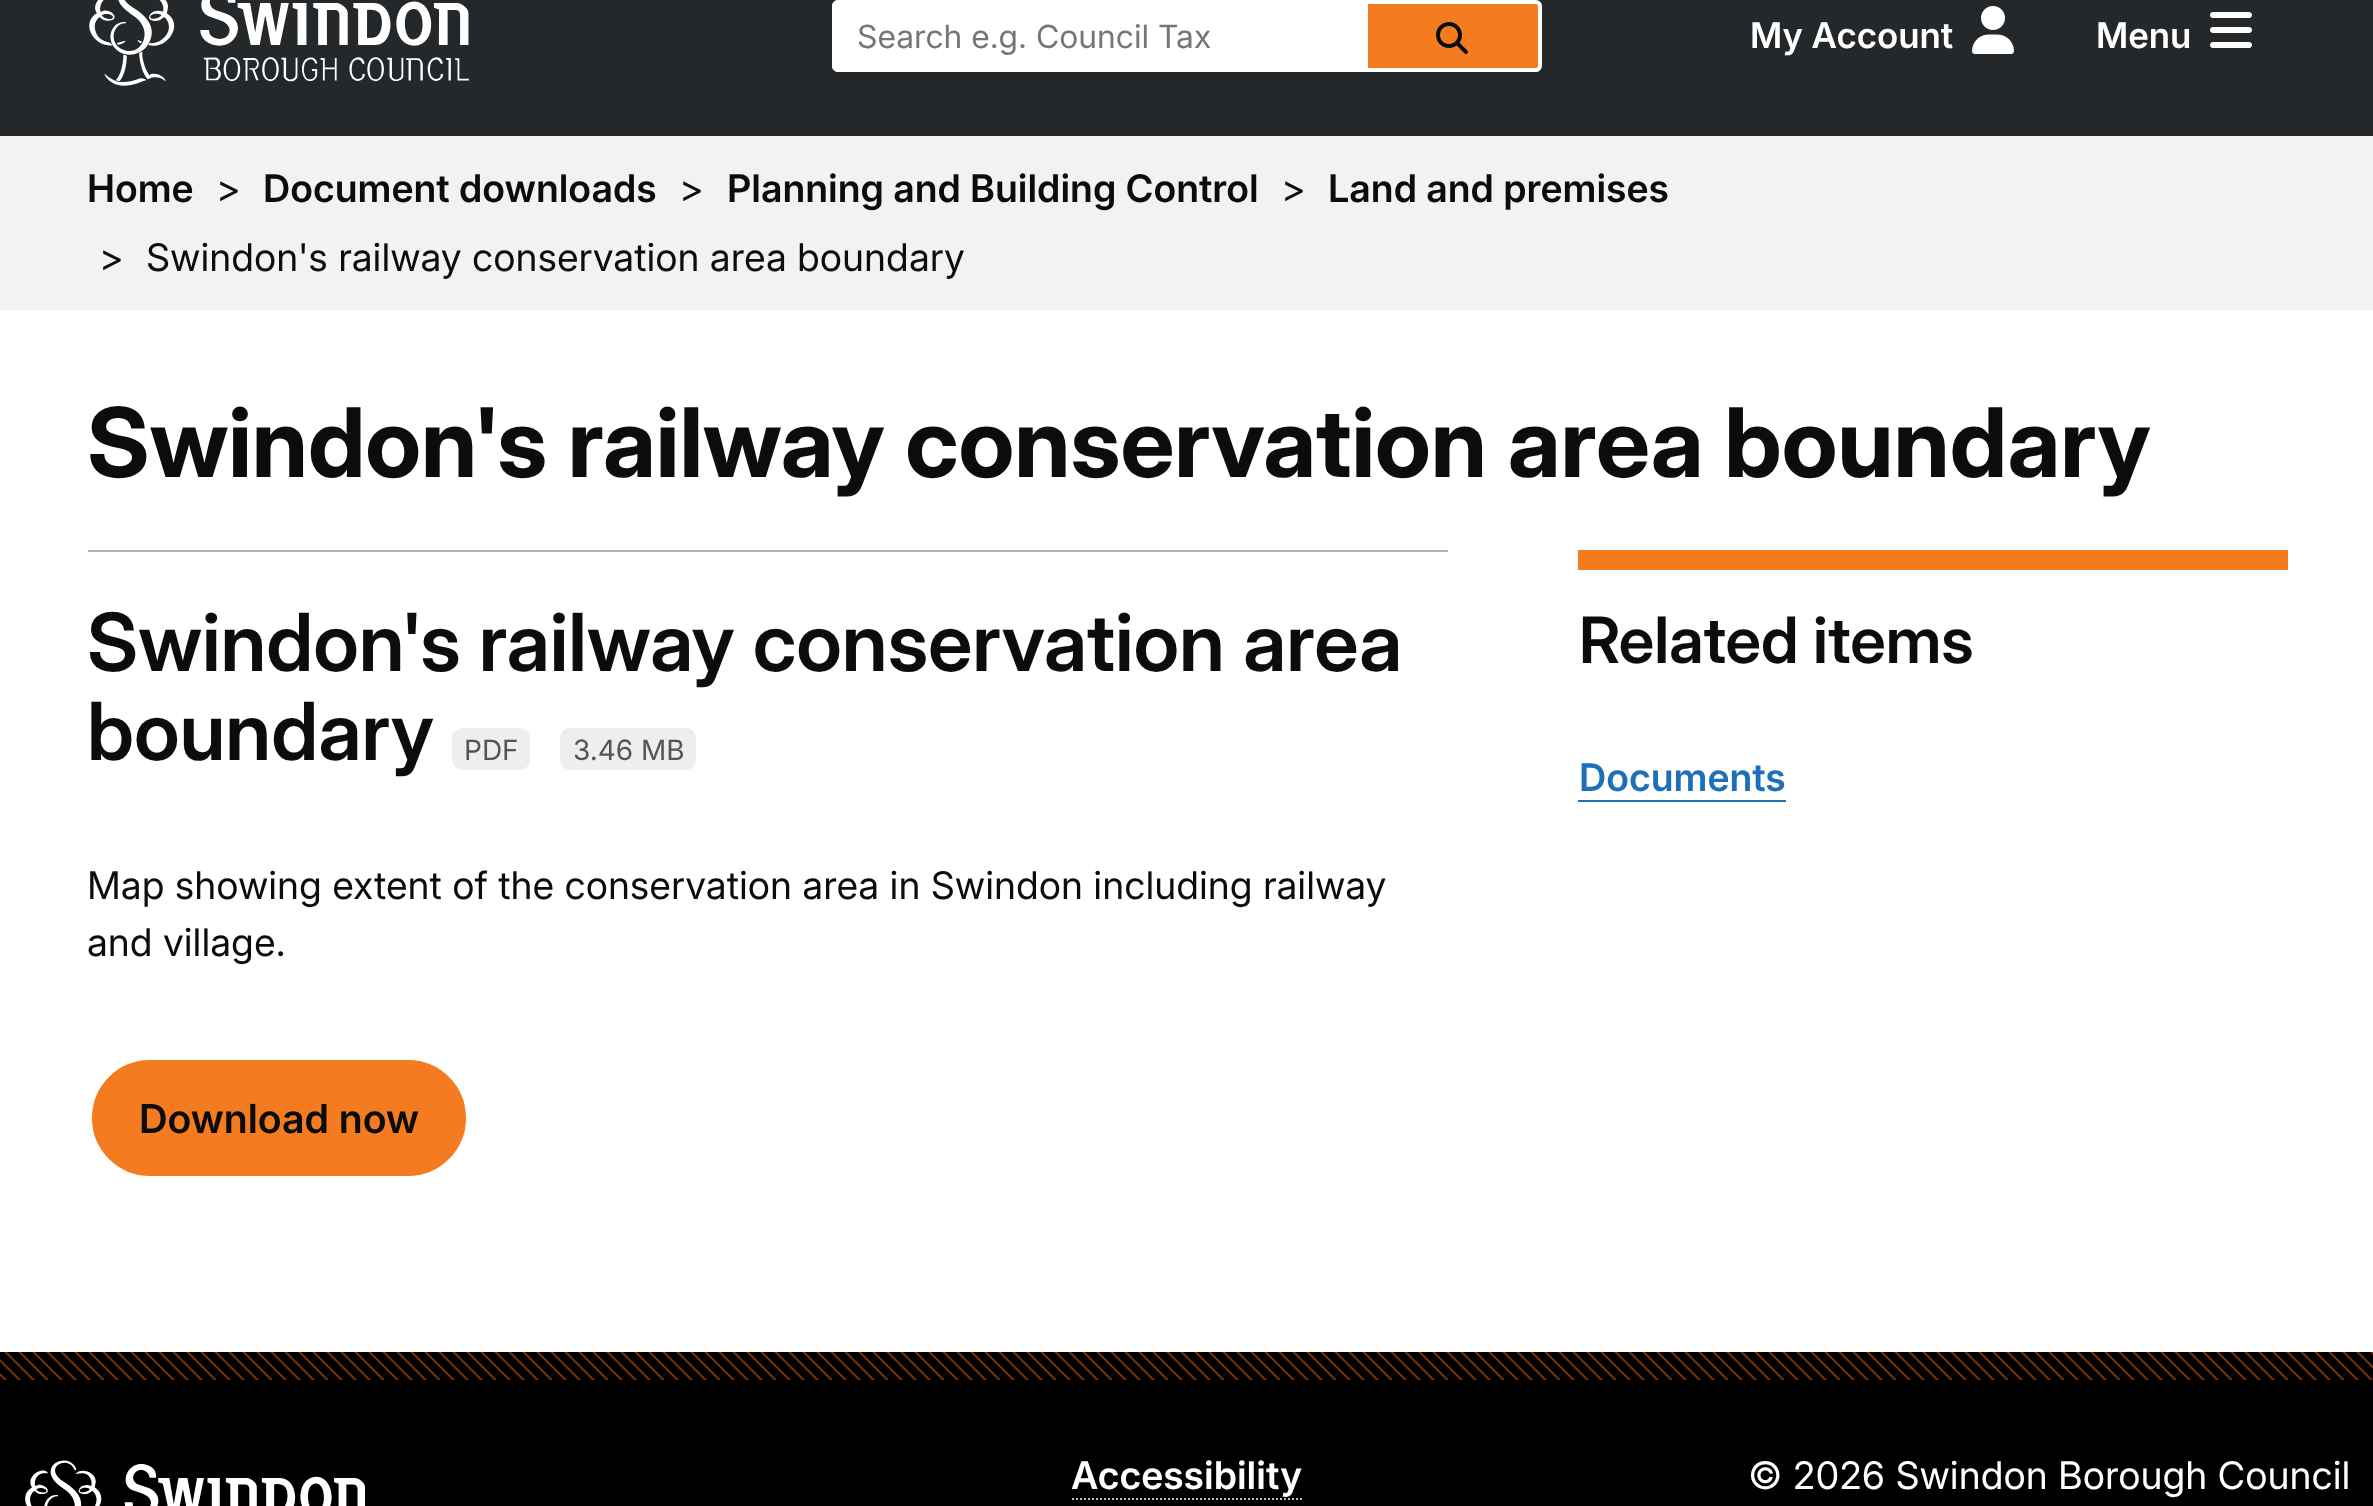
<svg xmlns="http://www.w3.org/2000/svg" width="2373" height="1506">
<style>
.a{font:32px 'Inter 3';fill:#767676}
.b{font:600 35.25px 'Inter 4';fill:#fff}
.c{font:600 38px 'Inter 3';fill:#0b0c0c}
.d{font:38px 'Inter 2';fill:#0b0c0c}
.e{font:bold 96px Inter;fill:#0b0c0c}
.f{font:600 80px Inter;fill:#0b0c0c}
.g{font:28px Inter;fill:#555}
.h{font:600 40px 'Inter 2';fill:#0b0c0c}
.i{font:600 64px Inter;fill:#0b0c0c}
.j{font:600 38px 'Inter 3';fill:#1d70b8}
.k{font:600 38px 'Inter 3';fill:#fff}
.l{font:38px 'Inter 2';fill:#fff}
</style>
<rect width="100%" height="100%" fill="#fff"/>
<path fill="#24282a" d="M0 0h2373v136H0z"/>
<image href="1.png" x="89" y="0" width="380" height="86"/>
<path fill="#fff" d="M838 0h526v72h-526c-3.5 0-6-2.5-6-6v-60c0-3.5 2.5-6 6-6z"/>
<path fill="#f47b20" stroke="#fff" stroke-width="4" d="M1366 2h170c2 0 4 2 4 4v60c0 2-2 4-4 4h-170z"/>
<image href="2.png" x="1436" y="22" width="32" height="32"/>
<image href="3.png" x="1972" y="6" width="42" height="48"/>
<image href="4.png" x="2210" y="12" width="42" height="36"/>
<path fill="#f3f2f1" d="M0 136h2373v174H0z"/>
<path fill="#b1b4b6" d="M88 550h1360v2H88z"/>
<rect fill="#eee" x="452" y="728" width="78" height="42" rx="10"/>
<rect fill="#eee" x="560" y="728" width="136" height="42" rx="10"/>
<rect fill="#f47b20" stroke="#fff" stroke-width="4" x="90" y="1058" width="378" height="120" rx="60"/>
<path fill="#f47b20" d="M1578 550h710v20H1578z"/>
<path fill="#1d70b8" d="M1578 800h208v2H1578z"/>
<path fill="#000" d="M0 1380h2373v126H0z"/>
<image href="5.png" x="0" y="1352" width="2373" height="28"/>
<image href="6.png" x="25" y="1460" width="340" height="46"/>
<path fill="none" stroke="#bfbfbf" stroke-width="2" stroke-dasharray="2 2" d="M1072 1499h230"/>
<text class="a" x="857" y="48">Search e.g. Council Tax</text>
<text class="b" x="1750" y="48">My Account</text>
<text class="b" x="2096" y="48">Menu</text>
<text class="c" x="87" y="202">Home</text>
<text class="d" x="216" y="202">&gt;</text>
<text class="c" x="263" y="202">Document downloads</text>
<text class="d" x="679" y="202">&gt;</text>
<text class="c" x="727" y="202">Planning and Building Control</text>
<text class="d" x="1281" y="202">&gt;</text>
<text class="c" x="1328" y="202">Land and premises</text>
<text class="d" x="99" y="271">&gt;</text>
<text class="d" x="146" y="271">Swindon's railway conservation area boundary</text>
<text class="e" x="87" y="477">Swindon's railway conservation area boundary</text>
<text class="f" x="87" y="671">Swindon's railway conservation area</text>
<text class="f" x="87" y="760">boundary</text>
<text class="g" x="464" y="760">PDF</text>
<text class="g" x="573" y="760">3.46 MB</text>
<text class="d" x="87" y="899">Map showing extent of the conservation area in Swindon including railway</text>
<text class="d" x="87" y="956">and village.</text>
<text class="h" x="139" y="1133">Download now</text>
<text class="i" x="1579" y="663">Related items</text>
<text class="j" x="1579" y="791">Documents</text>
<text class="k" x="1071" y="1489">Accessibility</text>
<text class="l" x="1748" y="1489">© 2026 Swindon Borough Council</text>
</svg>
